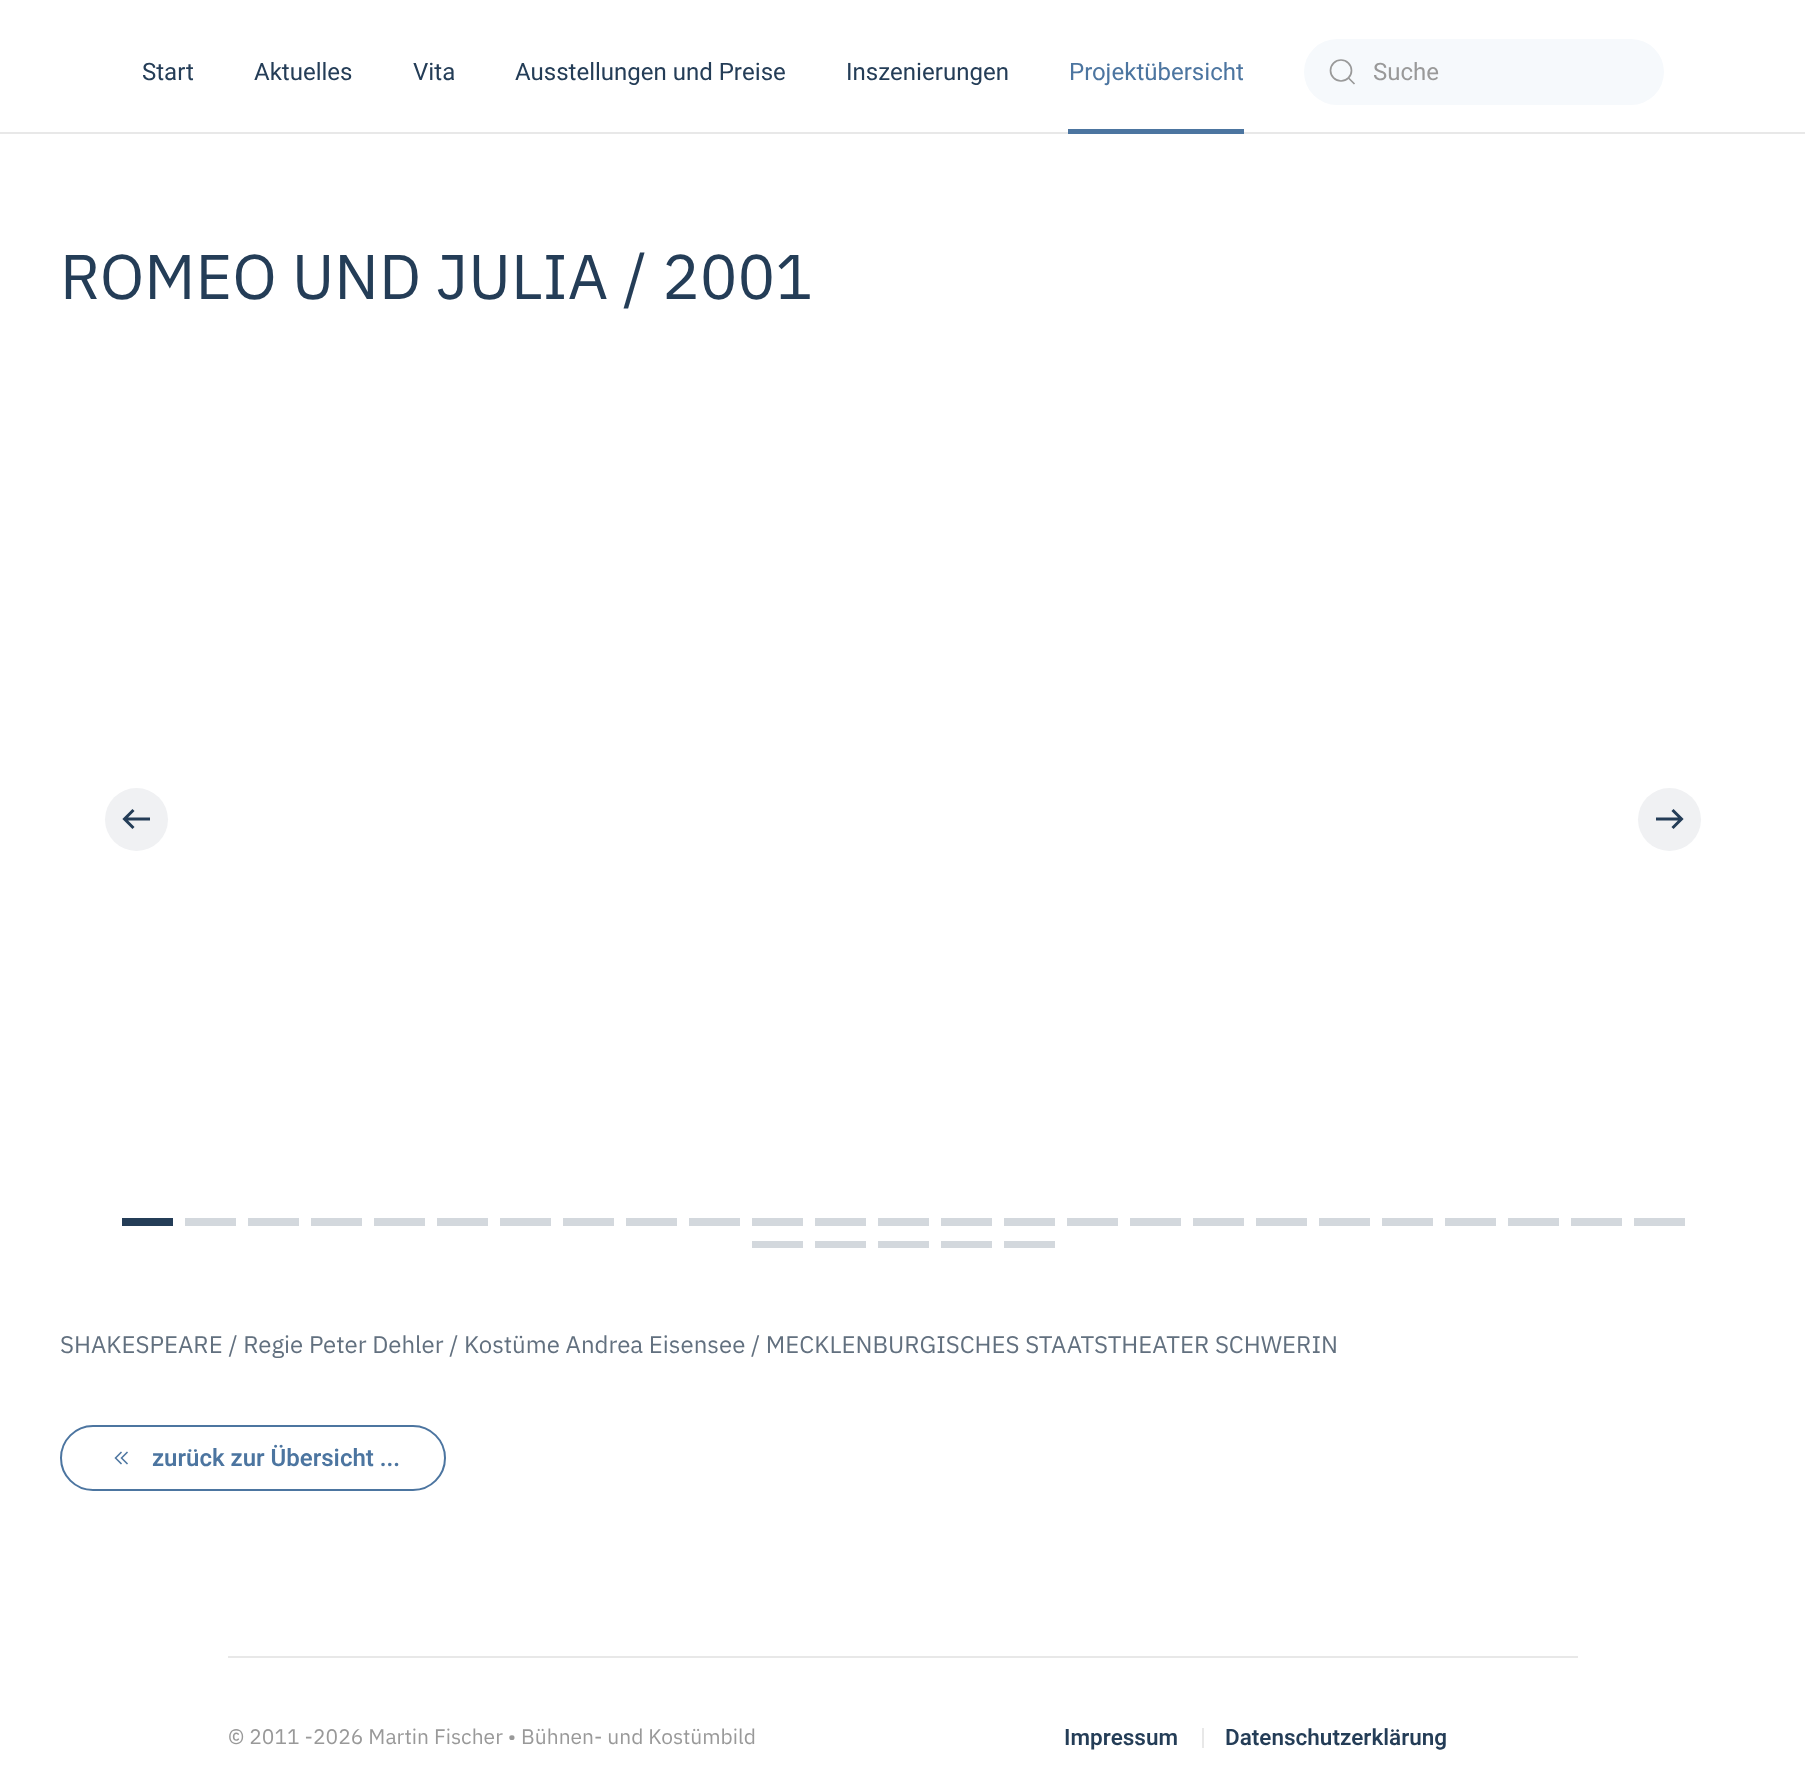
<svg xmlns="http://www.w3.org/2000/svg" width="1805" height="1786">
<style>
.a{font:24px Heebo;fill:#243d57}
.b{font:24px Heebo;fill:#4c75a0}
.c{font:24px Heebo;fill:#999}
.d{font:63px IBM Plex Sans;fill:#243d57}
.e{font:24px IBM Plex Sans;fill:#62707f}
.f{font:600 24px Heebo;fill:#4c75a0}
.g{font:21px IBM Plex Sans;fill:#999}
.h{font:600 22.5px Heebo;fill:#243d57}
</style>
<rect width="100%" height="100%" fill="#fff"/>
<path fill="#e8e8e8" d="M0 132h1805v2H0z"/>
<path fill="#4c75a0" d="M1068 129h176v5H1068z"/>
<rect fill="#f6f9fc" x="1304" y="39" width="360" height="66" rx="33"/>
<circle fill="none" stroke="#999" stroke-width="1.7" cx="1341" cy="70.5" r="10.5"/>
<path fill="none" stroke="#999" stroke-width="1.7" d="M1348.5 78l6 6z"/>
<circle fill="#f0f1f3" cx="136.5" cy="819.5" r="31.5"/>
<path fill="none" stroke="#243d57" stroke-width="3" d="M133.5 810l-9 9l9 9m16.5-9h-25.5"/>
<circle fill="#f0f1f3" cx="1669.5" cy="819.5" r="31.5"/>
<path fill="none" stroke="#243d57" stroke-width="3" d="M1672.5 828l9-9l-9-9m9 9h-25.5"/>
<path fill="#243d57" d="M122 1218h51v8H122z"/>
<path fill="#d3d8dd" d="M185 1218h51v8H185z"/>
<path fill="#d3d8dd" d="M248 1218h51v8H248z"/>
<path fill="#d3d8dd" d="M311 1218h51v8H311z"/>
<path fill="#d3d8dd" d="M374 1218h51v8H374z"/>
<path fill="#d3d8dd" d="M437 1218h51v8H437z"/>
<path fill="#d3d8dd" d="M500 1218h51v8H500z"/>
<path fill="#d3d8dd" d="M563 1218h51v8H563z"/>
<path fill="#d3d8dd" d="M626 1218h51v8H626z"/>
<path fill="#d3d8dd" d="M689 1218h51v8H689z"/>
<path fill="#d3d8dd" d="M752 1218h51v8H752z"/>
<path fill="#d3d8dd" d="M815 1218h51v8H815z"/>
<path fill="#d3d8dd" d="M878 1218h51v8H878z"/>
<path fill="#d3d8dd" d="M941 1218h51v8H941z"/>
<path fill="#d3d8dd" d="M1004 1218h51v8H1004z"/>
<path fill="#d3d8dd" d="M1067 1218h51v8H1067z"/>
<path fill="#d3d8dd" d="M1130 1218h51v8H1130z"/>
<path fill="#d3d8dd" d="M1193 1218h51v8H1193z"/>
<path fill="#d3d8dd" d="M1256 1218h51v8H1256z"/>
<path fill="#d3d8dd" d="M1319 1218h51v8H1319z"/>
<path fill="#d3d8dd" d="M1382 1218h51v8H1382z"/>
<path fill="#d3d8dd" d="M1445 1218h51v8H1445z"/>
<path fill="#d3d8dd" d="M1508 1218h51v8H1508z"/>
<path fill="#d3d8dd" d="M1571 1218h51v8H1571z"/>
<path fill="#d3d8dd" d="M1634 1218h51v8H1634z"/>
<path fill="#d3d8dd" d="M752 1241h51v7H752z"/>
<path fill="#d3d8dd" d="M815 1241h51v7H815z"/>
<path fill="#d3d8dd" d="M878 1241h51v7H878z"/>
<path fill="#d3d8dd" d="M941 1241h51v7H941z"/>
<path fill="#d3d8dd" d="M1004 1241h51v7H1004z"/>
<rect fill="none" stroke="#4c75a0" stroke-width="2" x="61" y="1426" width="384" height="64" rx="32"/>
<image href="1.png" x="114" y="1451" width="14" height="14"/>
<path fill="#e8e8e8" d="M228 1656h1350v2H228z"/>
<path fill="#e8e8e8" d="M1202 1728h2v20H1202z"/>
<text class="a" x="142" y="80">Start</text>
<text class="a" x="254" y="80">Aktuelles</text>
<text class="a" x="413" y="80">Vita</text>
<text class="a" x="515" y="80">Ausstellungen und Preise</text>
<text class="a" x="846" y="80">Inszenierungen</text>
<text class="b" x="1069" y="80">Projektübersicht</text>
<text class="c" x="1373" y="80">Suche</text>
<text class="d" x="60" y="299">ROMEO UND JULIA / 2001</text>
<text class="e" x="60" y="1353">SHAKESPEARE / Regie Peter Dehler / Kostüme Andrea Eisensee / MECKLENBURGISCHES STAATSTHEATER SCHWERIN</text>
<text class="f" x="152" y="1466">zurück zur Übersicht ...</text>
<text class="g" x="228" y="1744">© 2011 -2026 Martin Fischer • Bühnen- und Kostümbild</text>
<text class="h" x="1064" y="1745">Impressum</text>
<text class="h" x="1225" y="1745">Datenschutzerklärung</text>
</svg>
